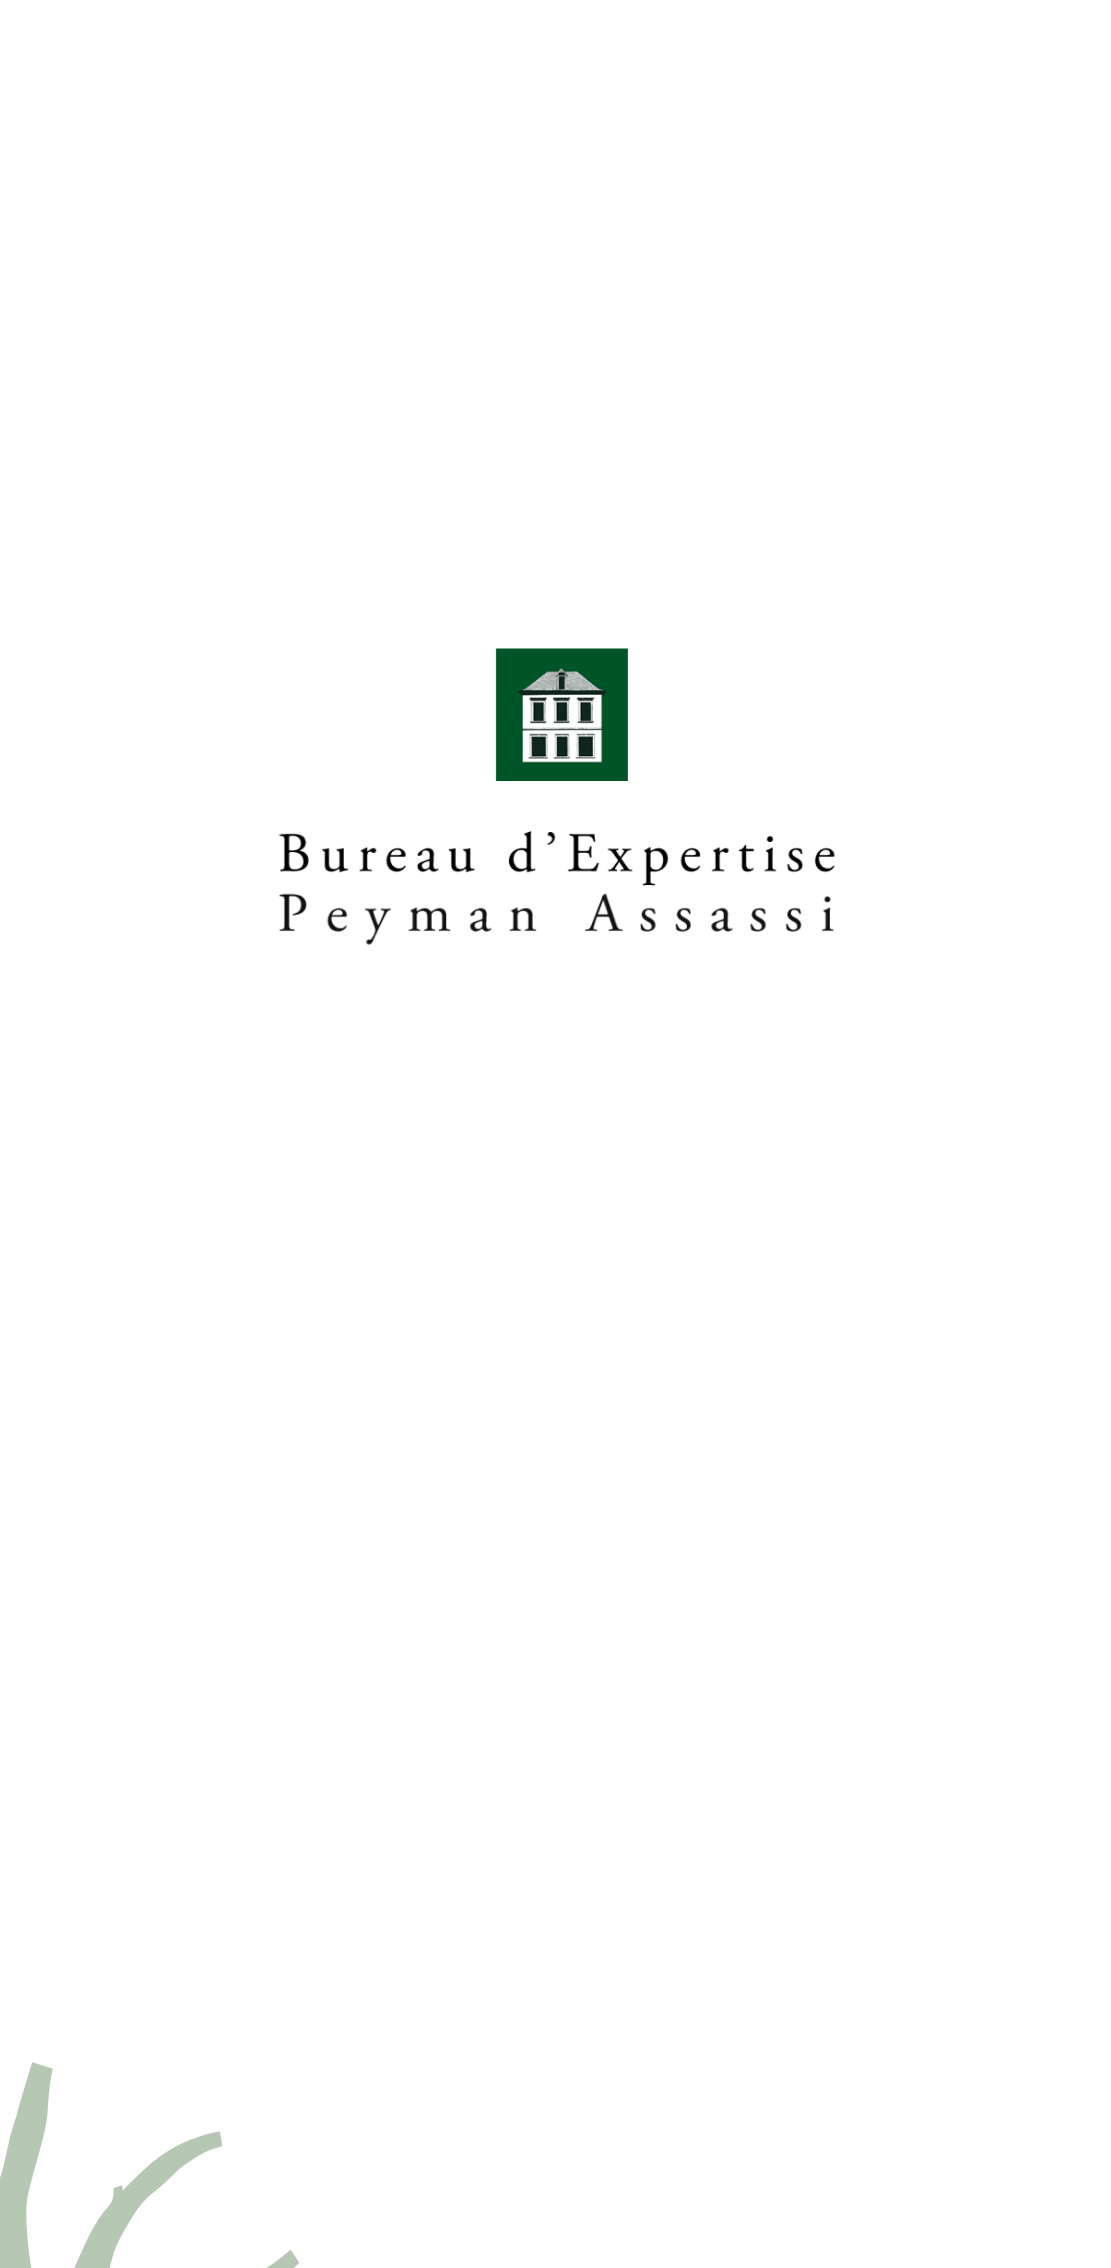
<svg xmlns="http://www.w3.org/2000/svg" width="1111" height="2268">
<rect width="100%" height="100%" fill="#fff"/>
<image href="1.png" x="495" y="648" width="133" height="133"/>
<image href="2.png" x="278" y="831" width="557" height="55"/>
<image href="3.png" x="278" y="893" width="556" height="52"/>
<image href="4.png" x="0" y="2062" width="300" height="206"/>
</svg>
